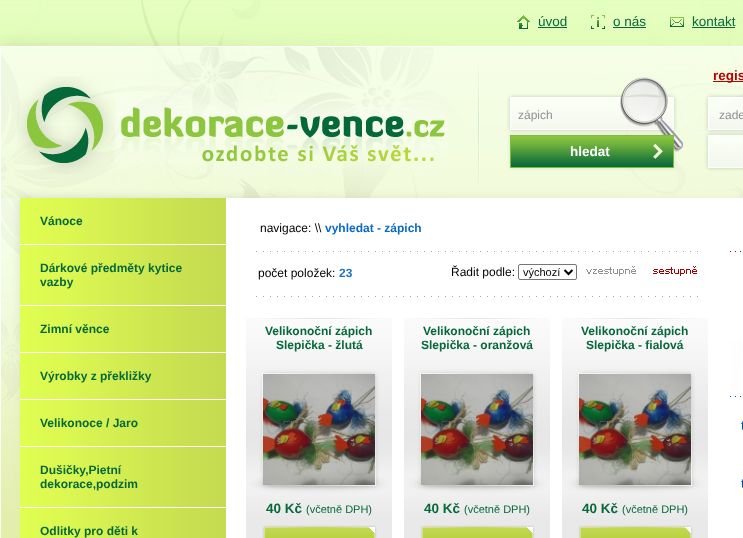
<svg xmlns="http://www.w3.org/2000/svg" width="743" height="538">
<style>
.a{font:13.5px Liberation Sans;fill:#06693a}
.b{font:bold 13.5px Liberation Sans;fill:#b80000}
.c{font:12px Liberation Sans;fill:#929093}
.d{font:bold 13.5px Liberation Sans;fill:#fff}
.e{font:bold 12px Liberation Sans;fill:#06693a}
.f{font:12px Liberation Sans;fill:#000}
.g{font:bold 12px Liberation Sans;fill:#0c6ac4}
.h{font:bold 12px Liberation Sans;fill:#2074bc}
.i{font:11px Liberation Sans;fill:#000}
.j{font:bold 13.5px Liberation Sans;fill:#06693a}
.k{font:11px Liberation Sans;fill:#06693a}
.l{font:13.5px Liberation Sans;fill:#014694}
</style>
<rect width="100%" height="100%" fill="#fff"/>
<image href="1.png" x="0" y="0" width="743" height="198"/>
<image href="2.png" x="517" y="15" width="13" height="14"/>
<path fill="#066a38" d="M538 27h29v1H538z"/>
<image href="3.png" x="591" y="15" width="14" height="14"/>
<path fill="#066a38" d="M613 27h33v1H613z"/>
<image href="4.png" x="670" y="17" width="14" height="10"/>
<path fill="#066a38" d="M692 27h43v1H692z"/>
<image href="5.png" x="17" y="76" width="431" height="98"/>
<image href="6.png" x="478" y="59" width="265" height="127"/>
<path fill="#b80000" d="M713 81h30v1H713z"/>
<image href="7.png" x="0" y="198" width="20" height="340"/>
<image href="8.png" x="20" y="198" width="206" height="46"/>
<image href="9.png" x="20" y="245" width="206" height="60"/>
<image href="8.png" x="20" y="306" width="206" height="46"/>
<image href="8.png" x="20" y="353" width="206" height="46"/>
<image href="8.png" x="20" y="400" width="206" height="46"/>
<image href="9.png" x="20" y="447" width="206" height="60"/>
<image href="10.png" x="20" y="508" width="206" height="30"/>
<image href="11.png" x="256" y="251" width="442" height="1"/>
<rect fill="none" stroke="#767676" x="518.5" y="264.5" width="58" height="15" rx="1.5"/>
<path fill="none" stroke="#000" stroke-width="2" d="M564.5 270l4 4l4-4"/>
<image href="12.png" x="586" y="266" width="50" height="10"/>
<image href="13.png" x="653" y="266" width="44" height="10"/>
<image href="11.png" x="256" y="296" width="442" height="1"/>
<image href="14.png" x="246" y="318" width="146" height="220"/>
<image href="15.png" x="263" y="374" width="112" height="111"/>
<image href="14.png" x="404" y="318" width="146" height="220"/>
<image href="16.png" x="421" y="374" width="112" height="111"/>
<image href="14.png" x="562" y="318" width="146" height="220"/>
<image href="17.png" x="579" y="374" width="112" height="111"/>
<image href="18.png" x="730" y="249" width="12" height="148"/>
<text class="a" x="538" y="26">úvod</text>
<text class="a" x="613" y="26">o nás</text>
<text class="a" x="692" y="26">kontakt</text>
<text class="b" x="713" y="80">regis</text>
<text class="c" x="518" y="119">zápich</text>
<text class="d" x="570" y="156">hledat</text>
<text class="c" x="719" y="119">zade</text>
<text class="e" x="40" y="225">Vánoce</text>
<text class="e" x="40" y="272">Dárkové předměty kytice</text>
<text class="e" x="40" y="286">vazby</text>
<text class="e" x="40" y="333">Zimní věnce</text>
<text class="e" x="40" y="380">Výrobky z překližky</text>
<text class="e" x="40" y="427">Velikonoce / Jaro</text>
<text class="e" x="40" y="474">Dušičky,Pietní</text>
<text class="e" x="40" y="488">dekorace,podzim</text>
<text class="e" x="40" y="535">Odlitky pro děti k</text>
<text class="f" x="260" y="232">navigace: \\</text>
<text class="g" x="325" y="232">vyhledat - zápich</text>
<text class="f" x="258" y="277">počet položek:</text>
<text class="h" x="339" y="277">23</text>
<text class="f" x="451" y="276">Řadit podle:</text>
<text class="i" x="523" y="276">výchozí</text>
<text class="e" x="265" y="335">Velikonoční zápich</text>
<text class="e" x="276" y="349">Slepička - žlutá</text>
<text class="j" x="266" y="513">40 Kč</text>
<text class="k" x="306" y="513">(včetně DPH)</text>
<text class="e" x="423" y="335">Velikonoční zápich</text>
<text class="e" x="421" y="349">Slepička - oranžová</text>
<text class="j" x="424" y="513">40 Kč</text>
<text class="k" x="464" y="513">(včetně DPH)</text>
<text class="e" x="581" y="335">Velikonoční zápich</text>
<text class="e" x="586" y="349">Slepička - fialová</text>
<text class="j" x="582" y="513">40 Kč</text>
<text class="k" x="622" y="513">(včetně DPH)</text>
<text class="l" x="741" y="430">t</text>
<text class="l" x="741" y="488">t</text>
</svg>
